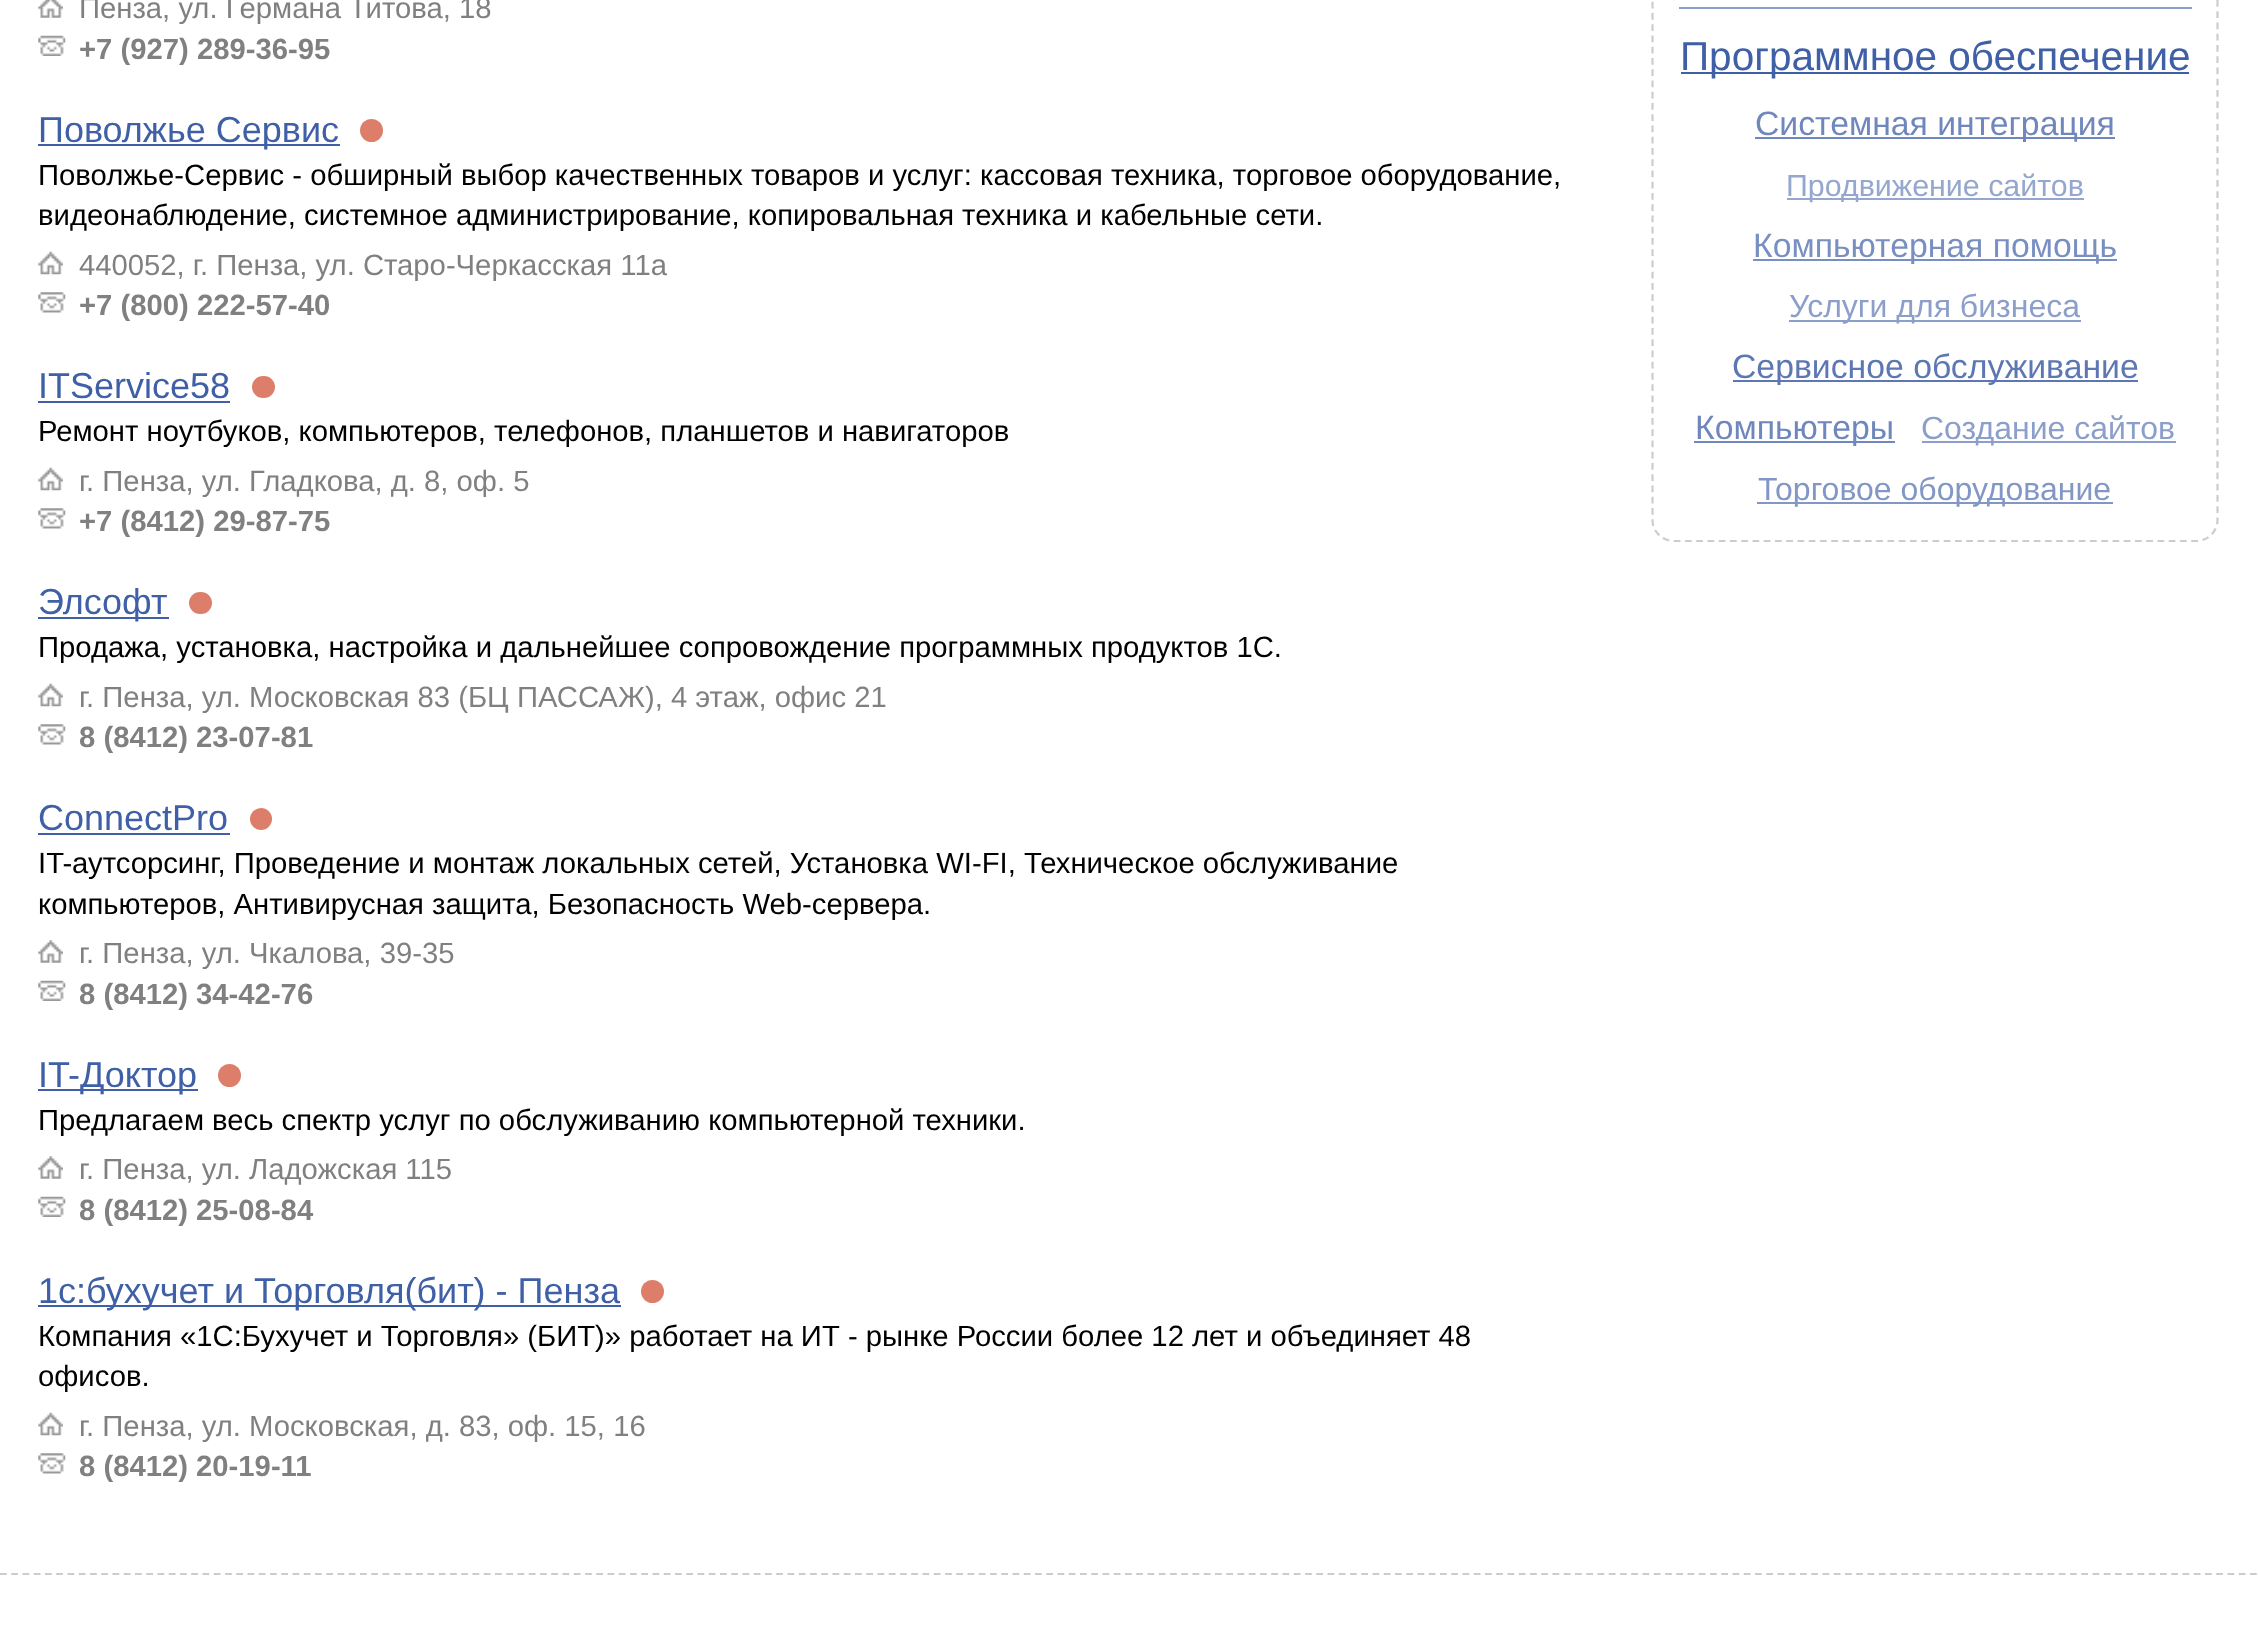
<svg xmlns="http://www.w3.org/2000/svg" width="2258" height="1637">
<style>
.a{font:29.25px Liberation Sans;fill:#808080}
.b{font:bold 29.25px Liberation Sans;fill:#808080}
.c{font:36px Liberation Sans;fill:#3f5fa6}
.d{font:29.25px Liberation Sans;fill:#000}
.e{font:40.5px Liberation Sans;fill:#3f5fa6}
.f{font:33.75px Liberation Sans;fill:#6f87bc}
.g{font:30.4px Liberation Sans;fill:#95a7ce}
.h{font:33.75px Liberation Sans;fill:#798fc1}
.i{font:32px Liberation Sans;fill:#8c9fca}
.j{font:33.75px Liberation Sans;fill:#5c77b3}
.k{font:32px Liberation Sans;fill:#8297c5}
</style>
<rect width="100%" height="100%" fill="#fff"/>
<image href="1.png" x="38" y="0" width="25" height="18"/>
<image href="2.png" x="38" y="35" width="28" height="21"/>
<path fill="#3f5fa6" d="M38 144h302v2H38z"/>
<circle fill="#dd7e6b" cx="371.5" cy="130.5" r="11.5"/>
<image href="3.png" x="38" y="251" width="25" height="24"/>
<image href="4.png" x="38" y="292" width="28" height="21"/>
<path fill="#3f5fa6" d="M38 401h192v2H38z"/>
<rect fill="#dd7e6b" x="252" y="376" width="23" height="22" rx="11"/>
<image href="3.png" x="38" y="467" width="25" height="24"/>
<image href="4.png" x="38" y="508" width="28" height="21"/>
<path fill="#3f5fa6" d="M38 617h131v2H38z"/>
<rect fill="#dd7e6b" x="189" y="592" width="23" height="22" rx="11"/>
<image href="3.png" x="38" y="683" width="25" height="24"/>
<image href="4.png" x="38" y="724" width="28" height="21"/>
<path fill="#3f5fa6" d="M38 833h192v2H38z"/>
<circle fill="#dd7e6b" cx="261" cy="819" r="11"/>
<image href="5.png" x="38" y="940" width="25" height="23"/>
<image href="2.png" x="38" y="980" width="28" height="21"/>
<path fill="#3f5fa6" d="M38 1089h160v2H38z"/>
<circle fill="#dd7e6b" cx="229.5" cy="1075.5" r="11.5"/>
<image href="5.png" x="38" y="1156" width="25" height="23"/>
<image href="2.png" x="38" y="1196" width="28" height="21"/>
<path fill="#3f5fa6" d="M38 1305h583v2H38z"/>
<circle fill="#dd7e6b" cx="652.5" cy="1291.5" r="11.5"/>
<image href="3.png" x="38" y="1412" width="25" height="24"/>
<image href="4.png" x="38" y="1453" width="28" height="21"/>
<path fill="none" stroke="#ccc" stroke-width="2.2" stroke-dasharray="6.75 4.5" d="M1674-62h522c12 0 21.5 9.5 21.5 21.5v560.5c0 11.5-9.5 21-21.5 21h-522c-12 0-21.5-9.5-21.5-21v-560.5c0-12 9.5-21.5 21.5-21.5z"/>
<path fill="#8c9fca" d="M1679 7h513v2H1679z"/>
<path fill="#3f5fa6" d="M1681 72h508v2H1681z"/>
<path fill="#6f87bc" d="M1755 137h360v2H1755z"/>
<path fill="#95a7ce" d="M1787 198h297v2H1787z"/>
<path fill="#798fc1" d="M1753 259h364v2H1753z"/>
<path fill="#8c9fca" d="M1789 320h292v2H1789z"/>
<path fill="#5c77b3" d="M1733 380h405v2H1733z"/>
<path fill="#6f87bc" d="M1694 441h201v2H1694z"/>
<path fill="#8c9fca" d="M1922 441h254v2H1922z"/>
<path fill="#8297c5" d="M1757 502h356v2H1757z"/>
<path fill="none" stroke="#ccc" stroke-width="2.2" stroke-dasharray="6.75 4.5" d="M0 1574h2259"/>
<text class="a" x="79" y="18">Пенза, ул. Германа Титова, 18</text>
<text class="b" x="79" y="59">+7 (927) 289-36-95</text>
<text class="c" x="38" y="142">Поволжье Сервис</text>
<text class="d" x="38" y="185">Поволжье-Сервис - обширный выбор качественных товаров и услуг: кассовая техника, торговое оборудование,</text>
<text class="d" x="38" y="225">видеонаблюдение, системное администрирование, копировальная техника и кабельные сети.</text>
<text class="a" x="79" y="275">440052, г. Пенза, ул. Старо-Черкасская 11а</text>
<text class="b" x="79" y="315">+7 (800) 222-57-40</text>
<text class="c" x="38" y="398">ITService58</text>
<text class="d" x="38" y="441">Ремонт ноутбуков, компьютеров, телефонов, планшетов и навигаторов</text>
<text class="a" x="79" y="491">г. Пенза, ул. Гладкова, д. 8, оф. 5</text>
<text class="b" x="79" y="531">+7 (8412) 29-87-75</text>
<text class="c" x="38" y="614">Элсофт</text>
<text class="d" x="38" y="657">Продажа, установка, настройка и дальнейшее сопровождение программных продуктов 1С.</text>
<text class="a" x="79" y="707">г. Пенза, ул. Московская 83 (БЦ ПАССАЖ), 4 этаж, офис 21</text>
<text class="b" x="79" y="747">8 (8412) 23-07-81</text>
<text class="c" x="38" y="830">ConnectPro</text>
<text class="d" x="38" y="873">IT-аутсорсинг, Проведение и монтаж локальных сетей, Установка WI-FI, Техническое обслуживание</text>
<text class="d" x="38" y="914">компьютеров, Антивирусная защита, Безопасность Web-сервера.</text>
<text class="a" x="79" y="963">г. Пенза, ул. Чкалова, 39-35</text>
<text class="b" x="79" y="1004">8 (8412) 34-42-76</text>
<text class="c" x="38" y="1087">IT-Доктор</text>
<text class="d" x="38" y="1130">Предлагаем весь спектр услуг по обслуживанию компьютерной техники.</text>
<text class="a" x="79" y="1179">г. Пенза, ул. Ладожская 115</text>
<text class="b" x="79" y="1220">8 (8412) 25-08-84</text>
<text class="c" x="38" y="1303">1с:бухучет и Торговля(бит) - Пенза</text>
<text class="d" x="38" y="1346">Компания «1С:Бухучет и Торговля» (БИТ)» работает на ИТ - рынке России более 12 лет и объединяет 48</text>
<text class="d" x="38" y="1386">офисов.</text>
<text class="a" x="79" y="1436">г. Пенза, ул. Московская, д. 83, оф. 15, 16</text>
<text class="b" x="79" y="1476">8 (8412) 20-19-11</text>
<text class="e" x="1680" y="70">Программное обеспечение</text>
<text class="f" x="1755" y="135">Системная интеграция</text>
<text class="g" x="1786" y="196">Продвижение сайтов</text>
<text class="h" x="1753" y="257">Компьютерная помощь</text>
<text class="i" x="1789" y="317">Услуги для бизнеса</text>
<text class="j" x="1732" y="378">Сервисное обслуживание</text>
<text class="f" x="1695" y="439">Компьютеры</text>
<text class="i" x="1921" y="439">Создание сайтов</text>
<text class="k" x="1758" y="500">Торговое оборудование</text>
</svg>
